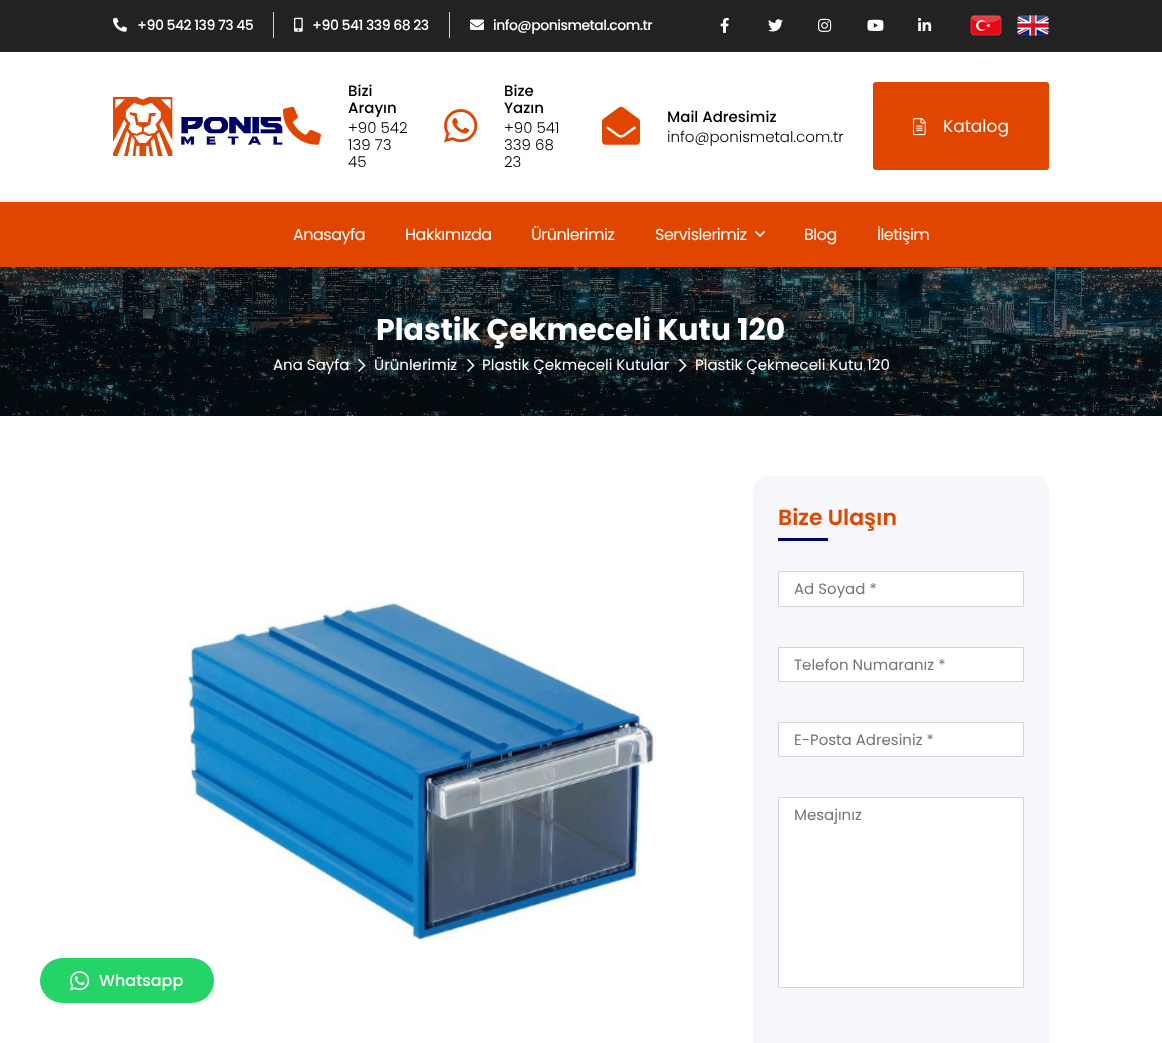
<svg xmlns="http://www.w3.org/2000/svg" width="1162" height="1043">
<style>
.a{font:500 14px Poppins;letter-spacing:-0.5px;fill:#fff}
.b{font:500 15px Poppins;fill:#000}
.c{font:300 15px Poppins;fill:#000}
.d{font:17px Poppins;fill:#fff}
.e{font:16px Poppins;letter-spacing:-0.5px;fill:#fff}
.f{font:bold 30px Poppins;fill:#fff}
.g{font:15px Poppins;fill:#fff}
.h{font:600 22px Poppins;fill:#e14600}
.i{font:15px Poppins;fill:#757575}
.j{font:500 16px Poppins;fill:#fff}
</style>
<rect width="100%" height="100%" fill="#fff"/>
<path fill="#222" d="M0 0h1162v50H0z"/>
<path fill="#202020" d="M0 50h1162v2H0z"/>
<path fill="#d4d4d4" d="M273 12h1v26H273z"/>
<image href="1.png" x="113" y="17" width="14" height="15"/>
<path fill="#d4d4d4" d="M449 12h1v26H449z"/>
<image href="2.png" x="294" y="17" width="9" height="15"/>
<image href="3.png" x="470" y="19" width="14" height="11"/>
<image href="4.png" x="720" y="17" width="9" height="16"/>
<image href="5.png" x="768" y="19" width="15" height="13"/>
<image href="6.png" x="818" y="18" width="14" height="14"/>
<image href="7.png" x="867" y="19" width="17" height="12"/>
<image href="8.png" x="918" y="17" width="14" height="14"/>
<image href="9.png" x="970" y="15" width="32" height="21"/>
<image href="10.png" x="1017" y="15" width="32" height="21"/>
<path fill="#f0f0f0" d="M0 200h1162v2H0z"/>
<image href="11.png" x="113" y="96" width="170" height="60"/>
<image href="12.png" x="283" y="106" width="38" height="39"/>
<image href="13.png" x="444" y="109" width="34" height="34"/>
<image href="14.png" x="602" y="106" width="38" height="39"/>
<rect fill="#e14600" x="873" y="82" width="176" height="88" rx="3"/>
<image href="15.png" x="913" y="118" width="13" height="18"/>
<path fill="#e14600" d="M0 202h1162v65H0z"/>
<image href="16.png" x="755" y="231" width="10" height="6"/>
<image href="17.png" x="0" y="267" width="1162" height="149"/>
<image href="18.png" x="358" y="359" width="8" height="13"/>
<image href="19.png" x="467" y="359" width="8" height="13"/>
<image href="20.png" x="679" y="359" width="8" height="13"/>
<image href="21.png" x="185" y="601" width="471" height="340"/>
<rect fill="#f7f6fb" x="753" y="476" width="296" height="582" rx="15"/>
<path fill="#006" d="M778 538h50v3H778z"/>
<path fill="#fff" stroke="#d6d6d6" d="M778.5 571.5h245v35H778.5z"/>
<path fill="#fff" stroke="#d6d6d6" d="M778.5 647.5h245v34H778.5z"/>
<path fill="#fff" stroke="#d6d6d6" d="M778.5 722.5h245v34H778.5z"/>
<path fill="#fff" stroke="#d6d6d6" d="M778.5 797.5h245v190H778.5z"/>
<rect fill="#25d366" x="40" y="958" width="174" height="45" rx="22.5"/>
<image href="22.png" x="70" y="971" width="20" height="20"/>
<text class="a" x="137" y="30">+90 542 139 73 45</text>
<text class="a" x="312" y="30">+90 541 339 68 23</text>
<text class="a" x="493" y="30">info@ponismetal.com.tr</text>
<text class="b" x="348" y="96">Bizi</text>
<text class="b" x="348" y="113">Arayın</text>
<text class="c" x="348" y="133">+90 542</text>
<text class="c" x="348" y="150">139 73</text>
<text class="c" x="348" y="167">45</text>
<text class="b" x="504" y="96">Bize</text>
<text class="b" x="504" y="113">Yazın</text>
<text class="c" x="504" y="133">+90 541</text>
<text class="c" x="504" y="150">339 68</text>
<text class="c" x="504" y="167">23</text>
<text class="b" x="667" y="122">Mail Adresimiz</text>
<text class="c" x="667" y="142">info@ponismetal.com.tr</text>
<text class="d" x="943" y="132">Katalog</text>
<text class="e" x="293" y="240">Anasayfa</text>
<text class="e" x="405" y="240">Hakkımızda</text>
<text class="e" x="531" y="240">Ürünlerimiz</text>
<text class="e" x="655" y="240">Servislerimiz</text>
<text class="e" x="804" y="240">Blog</text>
<text class="e" x="877" y="240">İletişim</text>
<text class="f" x="376" y="340">Plastik Çekmeceli Kutu 120</text>
<text class="g" x="273" y="370">Ana Sayfa</text>
<text class="g" x="374" y="370">Ürünlerimiz</text>
<text class="g" x="482" y="370">Plastik Çekmeceli Kutular</text>
<text class="g" x="695" y="370">Plastik Çekmeceli Kutu 120</text>
<text class="h" x="778" y="525">Bize Ulaşın</text>
<text class="i" x="794" y="594">Ad Soyad *</text>
<text class="i" x="794" y="670">Telefon Numaranız *</text>
<text class="i" x="794" y="745">E-Posta Adresiniz *</text>
<text class="i" x="794" y="820">Mesajınız</text>
<text class="j" x="99" y="986">Whatsapp</text>
</svg>
